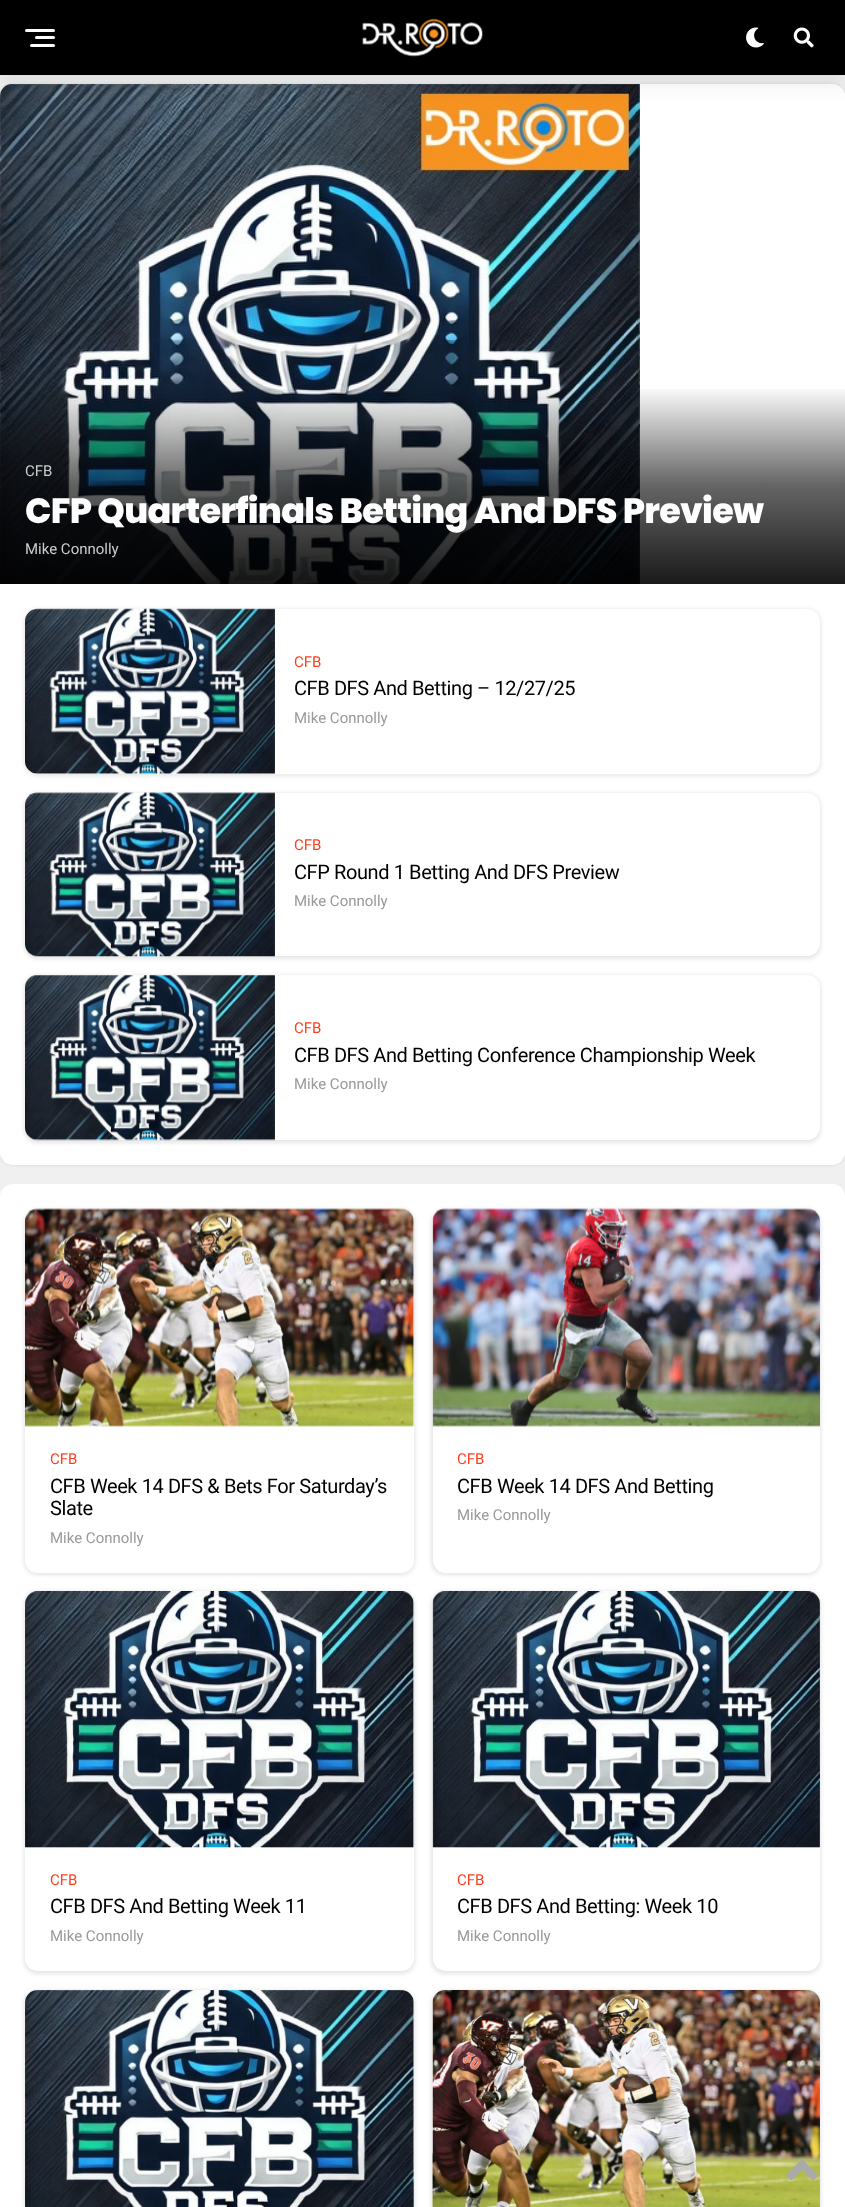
<svg xmlns="http://www.w3.org/2000/svg" width="845" height="2207">
<style>
.a{font:15px Roboto;fill:#ccc}
.b{font:800 35px Poppins;letter-spacing:-0.7px;fill:#fff}
.c{font:15px Roboto;fill:#fe4020}
.d{font:20px Roboto;letter-spacing:-0.4px;fill:#000}
.e{font:15px Roboto;fill:#999}
</style>
<defs>
<linearGradient id="g1" gradientUnits="userSpaceOnUse" x1="423" y1="385" x2="423" y2="584"><stop offset="0" stop-color="#000" stop-opacity="0"/><stop offset="0.5" stop-color="#000" stop-opacity="0.6"/><stop offset="1" stop-color="#000" stop-opacity="0.9"/></linearGradient>
</defs>
<rect width="100%" height="100%" fill="#f0f0f0"/>
<rect fill="#0000000f" filter="blur(1px)" x="-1" y="83" width="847" height="1083" rx="14"/>
<rect fill="#fff" y="84" width="845" height="1081" rx="13"/>
<path fill="#fff" d="M13 84h819c7 0 13 6 13 13v487h-845v-487c0-7 6-13 13-13z"/>
<image href="4.png" x="0" y="84" width="640" height="500"/>
<path fill="#15151e14" filter="blur(10px)" d="M0 10h845v75H0z"/>
<path fill="#000" d="M0 0h845v75H0z"/>
<rect fill="#fff" x="25" y="29" width="30" height="3" rx="1.5"/>
<rect fill="#fff" x="35" y="36" width="20" height="3" rx="1.5"/>
<rect fill="#fff" x="30" y="44" width="25" height="3" rx="1.5"/>
<image href="1.png" x="362" y="18" width="121" height="39"/>
<image href="2.png" x="746" y="27" width="18" height="21"/>
<image href="3.png" x="793" y="27" width="21" height="21"/>
<path fill="url(#g1)" d="M0 389h845v195H0z"/>
<rect fill="#0000001a" filter="blur(2px)" x="24" y="609" width="797" height="167" rx="14"/>
<rect fill="#fff" x="25" y="609" width="795" height="165" rx="13"/>
<image href="5.png" x="25" y="608" width="250" height="166"/>
<rect fill="#0000001a" filter="blur(2px)" x="24" y="793" width="797" height="166" rx="14"/>
<rect fill="#fff" x="25" y="793" width="795" height="163" rx="13"/>
<image href="6.png" x="25" y="792" width="250" height="165"/>
<rect fill="#0000001a" filter="blur(2px)" x="24" y="975" width="797" height="168" rx="14"/>
<rect fill="#fff" x="25" y="975" width="795" height="165" rx="13"/>
<image href="7.png" x="25" y="975" width="250" height="166"/>
<rect fill="#fff" y="1184" width="845" height="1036" rx="13"/>
<rect fill="#0000001a" filter="blur(2px)" x="24" y="1209" width="391" height="366" rx="14"/>
<rect fill="#fff" x="25" y="1209" width="389" height="364" rx="13"/>
<image href="8.png" x="25" y="1208" width="390" height="219"/>
<rect fill="#0000001a" filter="blur(2px)" x="431" y="1209" width="390" height="366" rx="14"/>
<rect fill="#fff" x="433" y="1209" width="387" height="364" rx="13"/>
<image href="9.png" x="432" y="1208" width="388" height="219"/>
<rect fill="#0000001a" filter="blur(2px)" x="24" y="1591" width="391" height="383" rx="14"/>
<rect fill="#fff" x="25" y="1591" width="389" height="380" rx="13"/>
<image href="10.png" x="25" y="1591" width="390" height="257"/>
<rect fill="#0000001a" filter="blur(2px)" x="431" y="1591" width="390" height="383" rx="14"/>
<rect fill="#fff" x="433" y="1591" width="387" height="380" rx="13"/>
<image href="11.png" x="432" y="1591" width="388" height="257"/>
<rect fill="#0000001a" filter="blur(2px)" x="24" y="1990" width="391" height="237" rx="14"/>
<rect fill="#fff" x="25" y="1990" width="389" height="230" rx="13"/>
<image href="12.png" x="25" y="1990" width="389" height="217"/>
<rect fill="#0000001a" filter="blur(2px)" x="431" y="1990" width="390" height="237" rx="14"/>
<image href="13.png" x="432" y="1990" width="388" height="217"/>
<image href="14.png" x="786" y="2160" width="32" height="20"/>
<text class="a" x="25" y="476">CFB</text>
<text class="b" x="25" y="523">CFP Quarterfinals Betting And DFS Preview</text>
<text class="a" x="25" y="554">Mike Connolly</text>
<text class="c" x="294" y="667">CFB</text>
<text class="d" x="294" y="695">CFB DFS And Betting – 12/27/25</text>
<text class="e" x="294" y="723">Mike Connolly</text>
<text class="c" x="294" y="850">CFB</text>
<text class="d" x="294" y="879">CFP Round 1 Betting And DFS Preview</text>
<text class="e" x="294" y="906">Mike Connolly</text>
<text class="c" x="294" y="1033">CFB</text>
<text class="d" x="294" y="1062">CFB DFS And Betting Conference Championship Week</text>
<text class="e" x="294" y="1089">Mike Connolly</text>
<text class="c" x="50" y="1464">CFB</text>
<text class="d" x="50" y="1493">CFB Week 14 DFS &amp; Bets For Saturday’s</text>
<text class="d" x="50" y="1515">Slate</text>
<text class="e" x="50" y="1543">Mike Connolly</text>
<text class="c" x="457" y="1464">CFB</text>
<text class="d" x="457" y="1493">CFB Week 14 DFS And Betting</text>
<text class="e" x="457" y="1520">Mike Connolly</text>
<text class="c" x="50" y="1885">CFB</text>
<text class="d" x="50" y="1913">CFB DFS And Betting Week 11</text>
<text class="e" x="50" y="1941">Mike Connolly</text>
<text class="c" x="457" y="1885">CFB</text>
<text class="d" x="457" y="1913">CFB DFS And Betting: Week 10</text>
<text class="e" x="457" y="1941">Mike Connolly</text>
</svg>
